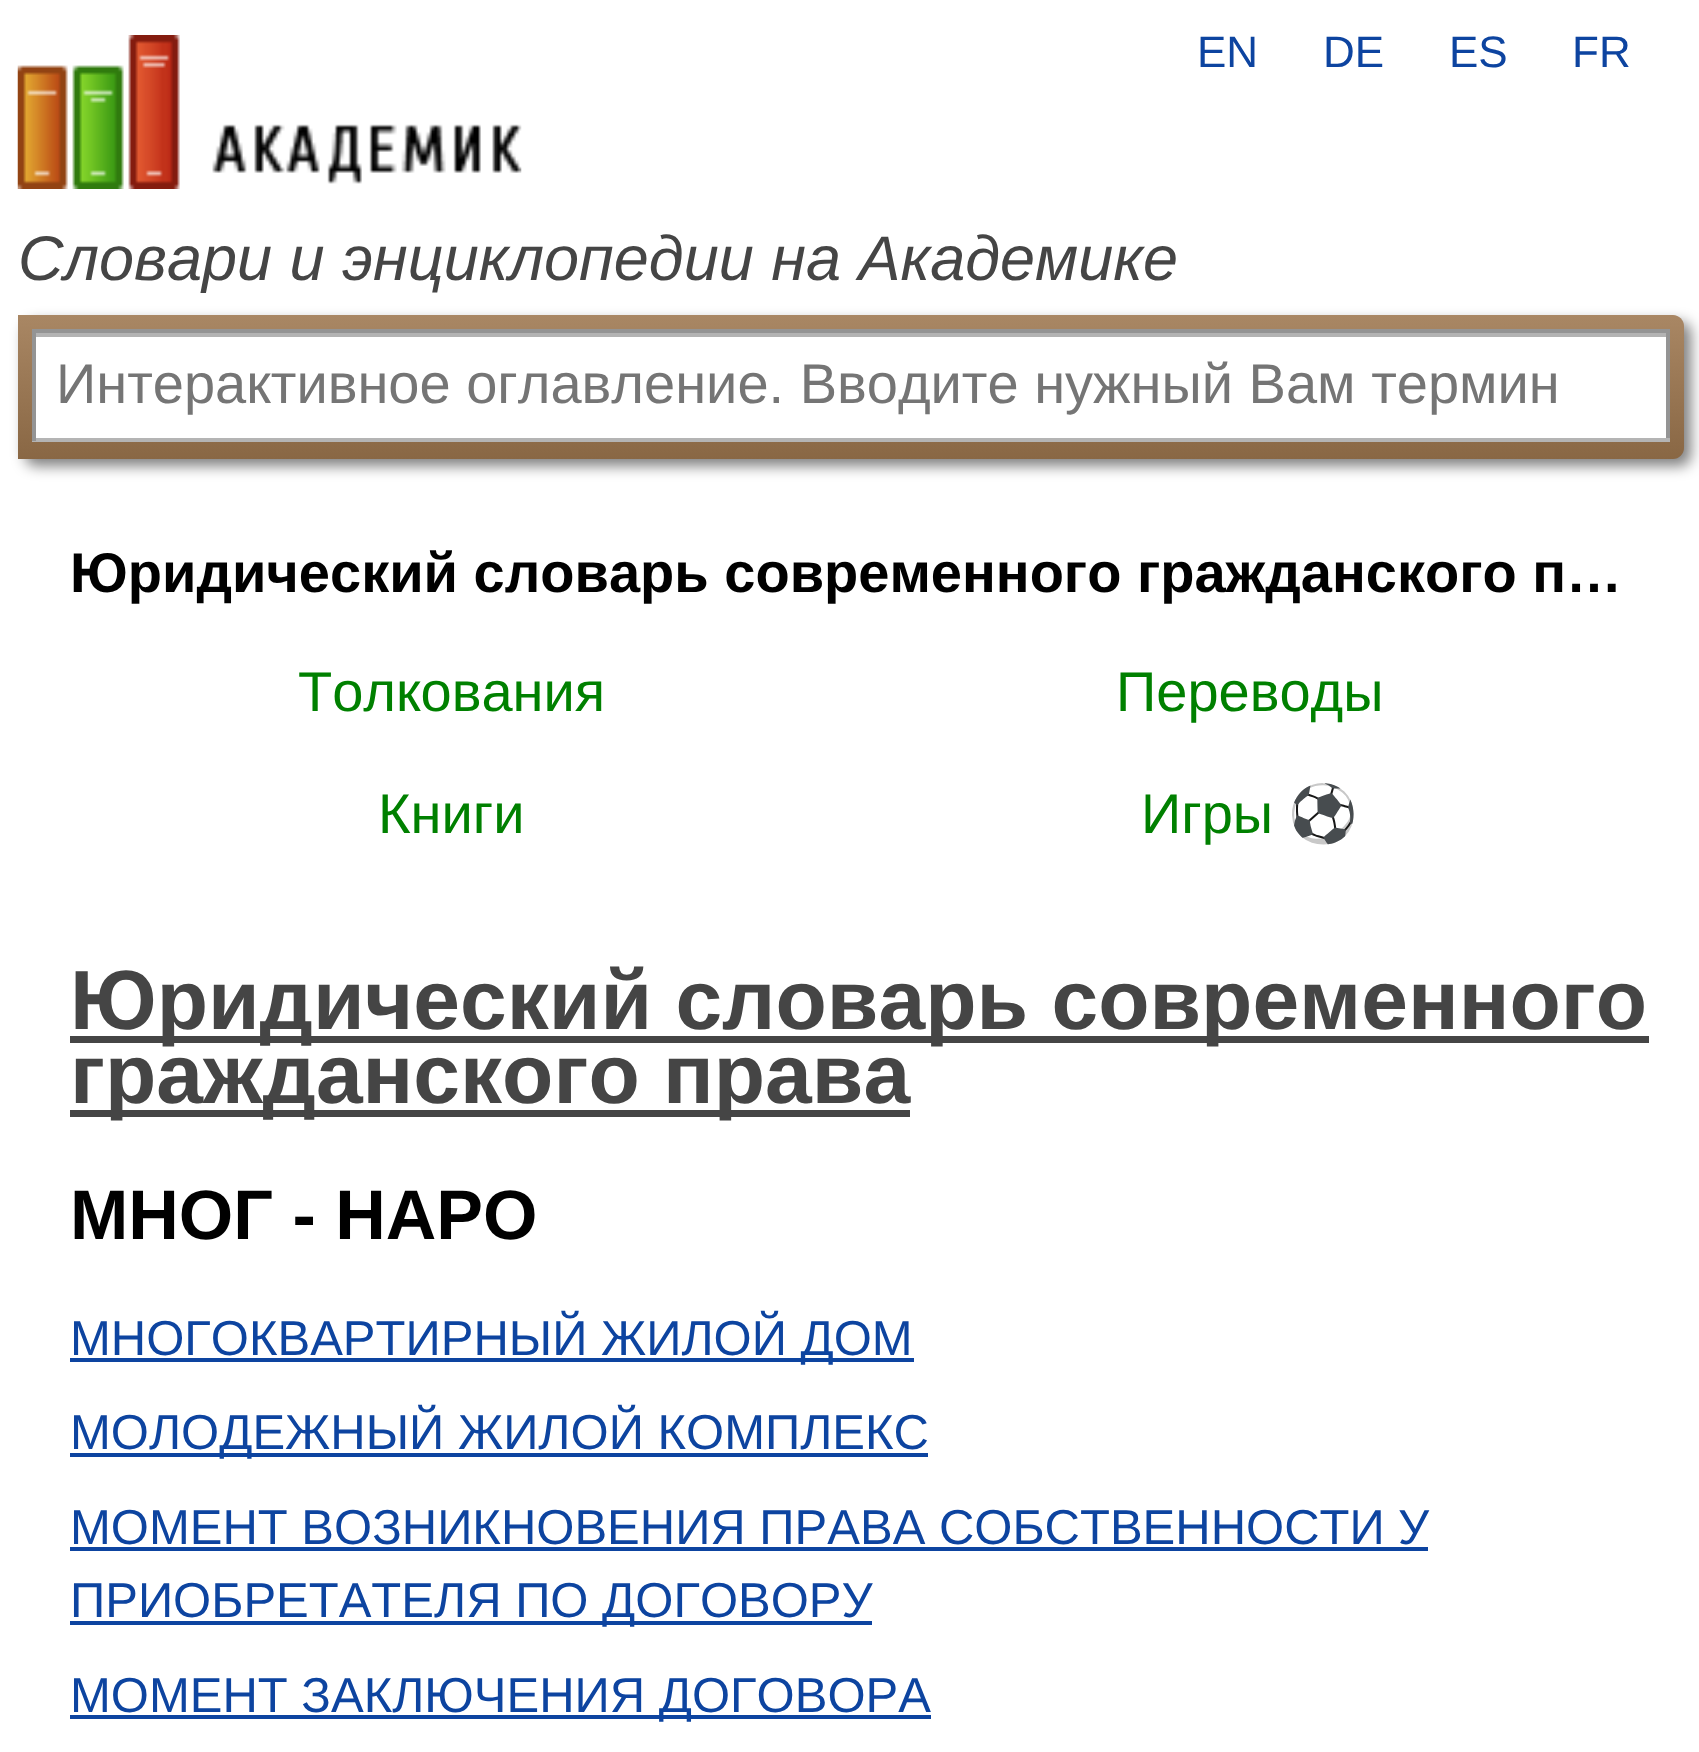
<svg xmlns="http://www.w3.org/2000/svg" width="1699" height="1752">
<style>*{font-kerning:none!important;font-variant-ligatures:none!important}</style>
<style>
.a{font:44px Liberation Sans;fill:#0d44a0}
.b{font:italic 63px Liberation Sans;fill:#454545}
.c{font:56px Liberation Sans;fill:#757575}
.d{font:bold 56px Liberation Sans;fill:#000}
.e{font:56px Liberation Sans;fill:#008000}
.f{font:56px Noto Color Emoji;fill:#008000}
.g{font:bold 84px Liberation Sans;fill:#454545}
.h{font:bold 70px Liberation Sans;fill:#000}
.i{font:49px Liberation Sans;fill:#0d44a0}
</style>
<defs>
<linearGradient id="g1" gradientUnits="userSpaceOnUse" x1="851" y1="315" x2="851" y2="459"><stop offset="0" stop-color="#a98764"/><stop offset="1" stop-color="#896744"/></linearGradient>
</defs>
<rect width="100%" height="100%" fill="#fff"/>
<image href="1.png" x="17" y="35" width="505" height="154"/>
<rect fill="#00000080" filter="blur(7px)" x="25" y="322" width="1666" height="144" rx="11"/>
<path fill="url(#g1)" d="M18 315h1655c6 0 11 5 11 11v122c0 6-5 11-11 11h-1655z"/>
<path fill="#fff" d="M36 337h1630v101H36z"/>
<path fill="#b3b3b3" d="M35 333h1631v4H35z"/>
<path fill="#949494" d="M32 329h1638v4H32z"/>
<path fill="#949494" d="M1666 329h4v112H1666z"/>
<path fill="#b4b4b4" d="M32 438h1638v4H32z"/>
<path fill="#949494" d="M32 329h4v112H32z"/>
<path fill="#454545" d="M70 1036h1579v7H70z"/>
<path fill="#454545" d="M70 1110h840v7H70z"/>
<path fill="#0d44a0" d="M70 1358h844v4H70z"/>
<path fill="#0d44a0" d="M70 1453h858v4H70z"/>
<path fill="#0d44a0" d="M70 1547h1358v4H70z"/>
<path fill="#0d44a0" d="M70 1621h802v4H70z"/>
<path fill="#0d44a0" d="M70 1715h861v4H70z"/>
<text class="a" x="1197" y="67">EN</text>
<text class="a" x="1323" y="67">DE</text>
<text class="a" x="1449" y="67">ES</text>
<text class="a" x="1572" y="67">FR</text>
<text class="b" x="18" y="280">Словари и энциклопедии на Академике</text>
<text class="c" x="56" y="403">Интерактивное оглавление. Вводите нужный Вам термин</text>
<text class="d" x="70" y="592">Юридический словарь современного гражданского п…</text>
<text class="e" x="298" y="711">Толкования</text>
<text class="e" x="1116" y="711">Переводы</text>
<text class="e" x="378" y="833">Книги</text>
<text class="e" x="1141" y="833">Игры</text>
<text class="f" x="1288" y="833">⚽</text>
<text class="g" x="70" y="1029">Юридический словарь современного</text>
<text class="g" x="70" y="1103">гражданского права</text>
<text class="h" x="70" y="1239">МНОГ - НАРО</text>
<text class="i" x="70" y="1355">МНОГОКВАРТИРНЫЙ ЖИЛОЙ ДОМ</text>
<text class="i" x="70" y="1449">МОЛОДЕЖНЫЙ ЖИЛОЙ КОМПЛЕКС</text>
<text class="i" x="70" y="1544">МОМЕНТ ВОЗНИКНОВЕНИЯ ПРАВА СОБСТВЕННОСТИ</text>
<text class="i" x="1398" y="1544">У</text>
<text class="i" x="70" y="1617">ПРИОБРЕТАТЕЛЯ ПО ДОГОВОРУ</text>
<text class="i" x="70" y="1712">МОМЕНТ ЗАКЛЮЧЕНИЯ ДОГОВОРА</text>
</svg>
